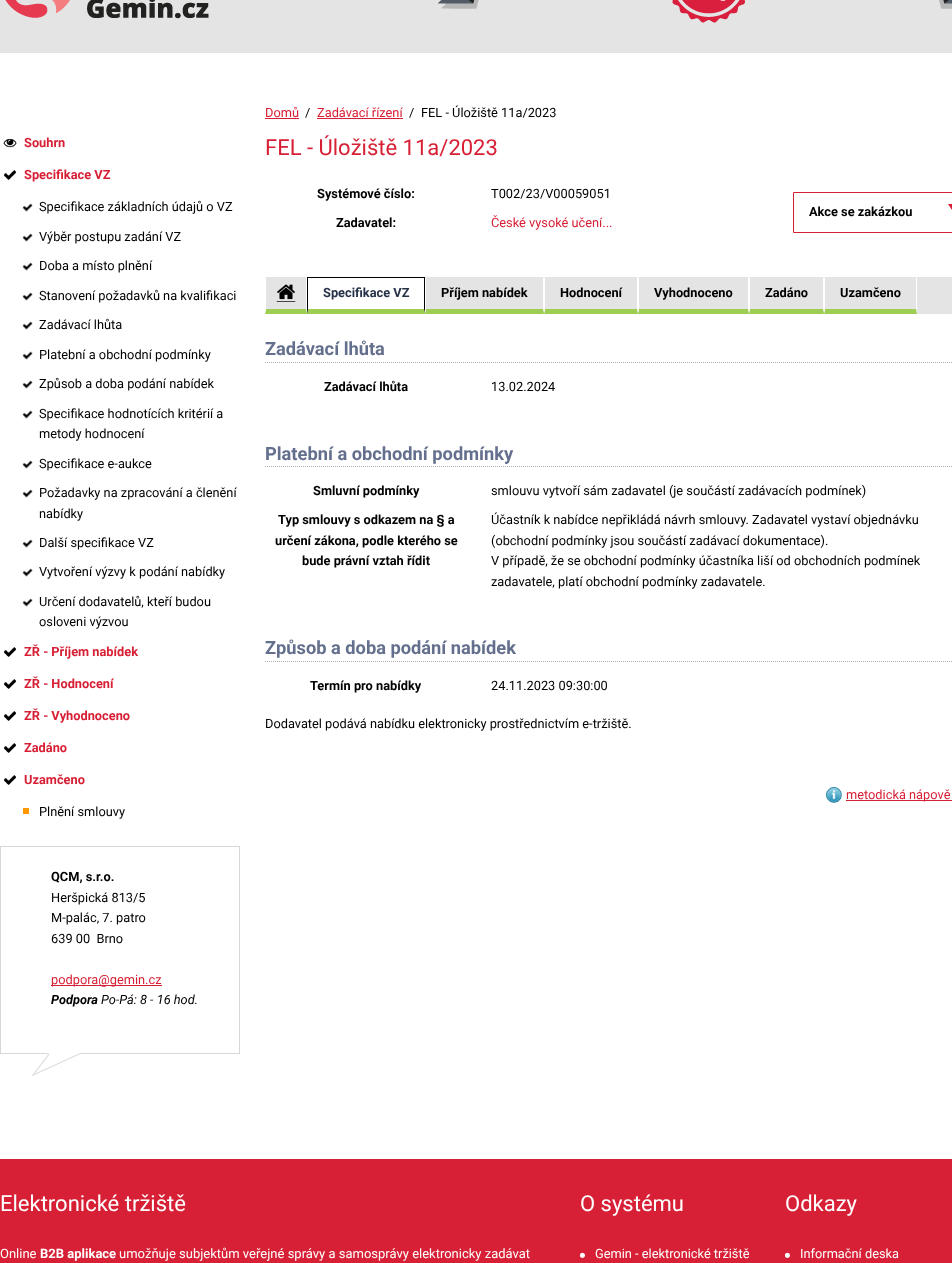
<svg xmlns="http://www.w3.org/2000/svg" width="952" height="1263">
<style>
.a{font:bold 12.8px Roboto;fill:#d72035}
.b{font:12.8px Roboto;fill:#000}
.c{font:bold 12.8px Roboto;fill:#000}
.d{font:12.8px Roboto;fill:#d72035}
.e{font:italic bold 12.8px Roboto;fill:#000}
.f{font:italic 12.8px Roboto;fill:#000}
.g{font:22px Roboto;fill:#d72035}
.h{font:bold 12.8px Roboto;fill:#263248}
.i{font:bold 18.25px Roboto;fill:#636f8c}
.j{font:22px Roboto;fill:#fff}
.k{font:13px Roboto;fill:#fff}
.l{font:bold 13px Roboto;fill:#fff}
.m{font:12.8px Roboto;fill:#fff}
</style>
<rect width="100%" height="100%" fill="#fff"/>
<path fill="#e4e4e4" d="M0 0h952v53H0z"/>
<image href="1.png" x="5" y="0" width="204" height="19"/>
<image href="2.png" x="438" y="0" width="514" height="23"/>
<image href="3.png" x="3" y="139" width="14" height="9"/>
<image href="4.png" x="4" y="170" width="12" height="10"/>
<image href="5.png" x="22" y="203" width="11" height="9"/>
<image href="5.png" x="22" y="233" width="11" height="9"/>
<image href="5.png" x="22" y="262" width="11" height="9"/>
<image href="5.png" x="22" y="292" width="11" height="9"/>
<image href="5.png" x="22" y="321" width="11" height="9"/>
<image href="5.png" x="22" y="351" width="11" height="9"/>
<image href="5.png" x="22" y="380" width="11" height="9"/>
<image href="5.png" x="22" y="410" width="11" height="9"/>
<image href="5.png" x="22" y="460" width="11" height="9"/>
<image href="5.png" x="22" y="489" width="11" height="9"/>
<image href="5.png" x="22" y="539" width="11" height="9"/>
<image href="5.png" x="22" y="568" width="11" height="9"/>
<image href="5.png" x="22" y="598" width="11" height="9"/>
<image href="4.png" x="4" y="647" width="12" height="10"/>
<image href="4.png" x="4" y="679" width="12" height="10"/>
<image href="4.png" x="4" y="711" width="12" height="10"/>
<image href="4.png" x="4" y="743" width="12" height="10"/>
<image href="4.png" x="4" y="775" width="12" height="10"/>
<path fill="#ff9800" d="M23 808h6v6H23z"/>
<image href="6.png" x="0" y="1053" width="240" height="23"/>
<path fill="#d7d7d7" d="M0 846h240v1H0z"/>
<path fill="#d7d7d7" d="M239 846h1v207H239z"/>
<path fill="#d7d7d7" d="M0 846h1v207H0z"/>
<path fill="#d72035" d="M51 985h111v1H51z"/>
<path fill="#d72035" d="M265 118h34v1H265z"/>
<path fill="#d72035" d="M317 118h86v1H317z"/>
<path fill="none" stroke="#d72035" d="M793.5 192.5h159v40H793.5z"/>
<path fill="#d72035" d="M948 204h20l-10 15z"/>
<path fill="#e4e4e4" d="M265 277h687v37H265z"/>
<image href="7.png" x="276" y="284" width="20" height="18"/>
<path fill="#fff" d="M307 277v37l-1-5v-31z"/>
<path fill="#9dcd52" d="M307 314h-42l1-5h40z"/>
<path fill="#fff" d="M265 314v-37l1 1v31z"/>
<path fill="#fff" d="M308 278h116v31H308z"/>
<path fill="#000" d="M307 277h118v1H307z"/>
<path fill="#000" d="M425 277v37l-1-5v-31z"/>
<path fill="#9dcd52" d="M425 314h-118l1-5h116z"/>
<path fill="#000" d="M307 314v-37l1 1v31z"/>
<path fill="#fff" d="M544 277v37l-1-5v-31z"/>
<path fill="#9dcd52" d="M544 314h-119l1-5h117z"/>
<path fill="#fff" d="M425 314v-37l1 1v31z"/>
<path fill="#fff" d="M638 277v37l-1-5v-31z"/>
<path fill="#9dcd52" d="M638 314h-94l1-5h92z"/>
<path fill="#fff" d="M544 314v-37l1 1v31z"/>
<path fill="#fff" d="M749 277v37l-1-5v-31z"/>
<path fill="#9dcd52" d="M749 314h-111l1-5h109z"/>
<path fill="#fff" d="M638 314v-37l1 1v31z"/>
<path fill="#fff" d="M824 277v37l-1-5v-31z"/>
<path fill="#9dcd52" d="M824 314h-75l1-5h73z"/>
<path fill="#fff" d="M749 314v-37l1 1v31z"/>
<path fill="#fff" d="M917 277v37l-1-5v-31z"/>
<path fill="#9dcd52" d="M917 314h-93l1-5h91z"/>
<path fill="#fff" d="M824 314v-37l1 1v31z"/>
<path fill="none" stroke="#adadad" stroke-dasharray="1 1" d="M265 362.5h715"/>
<path fill="none" stroke="#adadad" stroke-dasharray="1 1" d="M265 466.5h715"/>
<path fill="none" stroke="#adadad" stroke-dasharray="1 1" d="M265 661.5h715"/>
<image href="8.png" x="826" y="787" width="16" height="16"/>
<path fill="#d72035" d="M846 800h106v1H846z"/>
<path fill="#d72035" d="M0 1159h952v104H0z"/>
<image href="9.png" x="580" y="1252" width="5" height="6"/>
<image href="9.png" x="785" y="1252" width="5" height="6"/>
<text class="a" x="24" y="147">Souhrn</text>
<text class="a" x="24" y="179">Specifikace VZ</text>
<text class="b" x="39" y="211">Specifikace základních údajů o VZ</text>
<text class="b" x="39" y="241">Výběr postupu zadání VZ</text>
<text class="b" x="39" y="270">Doba a místo plnění</text>
<text class="b" x="39" y="300">Stanovení požadavků na kvalifikaci</text>
<text class="b" x="39" y="329">Zadávací lhůta</text>
<text class="b" x="39" y="359">Platební a obchodní podmínky</text>
<text class="b" x="39" y="388">Způsob a doba podání nabídek</text>
<text class="b" x="39" y="418">Specifikace hodnotících kritérií a</text>
<text class="b" x="39" y="438">metody hodnocení</text>
<text class="b" x="39" y="468">Specifikace e-aukce</text>
<text class="b" x="39" y="497">Požadavky na zpracování a členění</text>
<text class="b" x="39" y="518">nabídky</text>
<text class="b" x="39" y="547">Další specifikace VZ</text>
<text class="b" x="39" y="576">Vytvoření výzvy k podání nabídky</text>
<text class="b" x="39" y="606">Určení dodavatelů, kteří budou</text>
<text class="b" x="39" y="626">osloveni výzvou</text>
<text class="a" x="24" y="656">ZŘ - Příjem nabídek</text>
<text class="a" x="24" y="688">ZŘ - Hodnocení</text>
<text class="a" x="24" y="720">ZŘ - Vyhodnoceno</text>
<text class="a" x="24" y="752">Zadáno</text>
<text class="a" x="24" y="784">Uzamčeno</text>
<text class="b" x="39" y="816">Plnění smlouvy</text>
<text class="c" x="51" y="881">QCM, s.r.o.</text>
<text class="b" x="51" y="902">Heršpická 813/5</text>
<text class="b" x="51" y="922">M-palác, 7. patro</text>
<text class="b" xml:space="preserve" x="51" y="943">639 00  Brno</text>
<text class="d" x="51" y="984">podpora@gemin.cz</text>
<text class="e" x="51" y="1004">Podpora</text>
<text class="f" x="101" y="1004">Po-Pá: 8 - 16 hod.</text>
<text class="d" x="265" y="117">Domů</text>
<text class="b" x="305" y="117">/</text>
<text class="d" x="317" y="117">Zadávací řízení</text>
<text class="b" x="409" y="117">/</text>
<text class="b" x="421" y="117">FEL - Úložiště 11a/2023</text>
<text class="g" x="265" y="155">FEL - Úložiště 11a/2023</text>
<text class="c" x="317" y="198">Systémové číslo:</text>
<text class="b" x="491" y="198">T002/23/V00059051</text>
<text class="c" x="336" y="227">Zadavatel:</text>
<text class="d" x="491" y="227">České vysoké učení...</text>
<text class="c" x="809" y="216">Akce se zakázkou</text>
<text class="h" x="323" y="297">Specifikace VZ</text>
<text class="c" x="441" y="297">Příjem nabídek</text>
<text class="c" x="560" y="297">Hodnocení</text>
<text class="c" x="654" y="297">Vyhodnoceno</text>
<text class="c" x="765" y="297">Zadáno</text>
<text class="c" x="840" y="297">Uzamčeno</text>
<text class="i" x="265" y="355">Zadávací lhůta</text>
<text class="c" x="324" y="391">Zadávací lhůta</text>
<text class="b" x="491" y="391">13.02.2024</text>
<text class="i" x="265" y="460">Platební a obchodní podmínky</text>
<text class="c" x="313" y="495">Smluvní podmínky</text>
<text class="b" x="491" y="495">smlouvu vytvoří sám zadavatel (je součástí zadávacích podmínek)</text>
<text class="c" x="278" y="524">Typ smlouvy s odkazem na § a</text>
<text class="c" x="275" y="545">určení zákona, podle kterého se</text>
<text class="c" x="302" y="565">bude právní vztah řídit</text>
<text class="b" x="491" y="524">Účastník k nabídce nepřikládá návrh smlouvy. Zadavatel vystaví objednávku</text>
<text class="b" x="491" y="545">(obchodní podmínky jsou součástí zadávací dokumentace).</text>
<text class="b" x="491" y="565">V případě, že se obchodní podmínky účastníka liší od obchodních podmínek</text>
<text class="b" x="491" y="586">zadavatele, platí obchodní podmínky zadavatele.</text>
<text class="i" x="265" y="654">Způsob a doba podání nabídek</text>
<text class="c" x="310" y="690">Termín pro nabídky</text>
<text class="b" x="491" y="690">24.11.2023 09:30:00</text>
<text class="b" x="265" y="728">Dodavatel podává nabídku elektronicky prostřednictvím e-tržiště.</text>
<text class="d" x="846" y="799">metodická nápově</text>
<text class="j" x="0" y="1211">Elektronické tržiště</text>
<text class="k" x="0" y="1258">Online</text>
<text class="l" x="40" y="1258">B2B aplikace</text>
<text class="k" x="119" y="1258">umožňuje subjektům veřejné správy a samosprávy elektronicky zadávat</text>
<text class="j" x="580" y="1211">O systému</text>
<text class="m" x="595" y="1258">Gemin - elektronické tržiště</text>
<text class="j" x="785" y="1211">Odkazy</text>
<text class="m" x="800" y="1258">Informační deska</text>
</svg>
